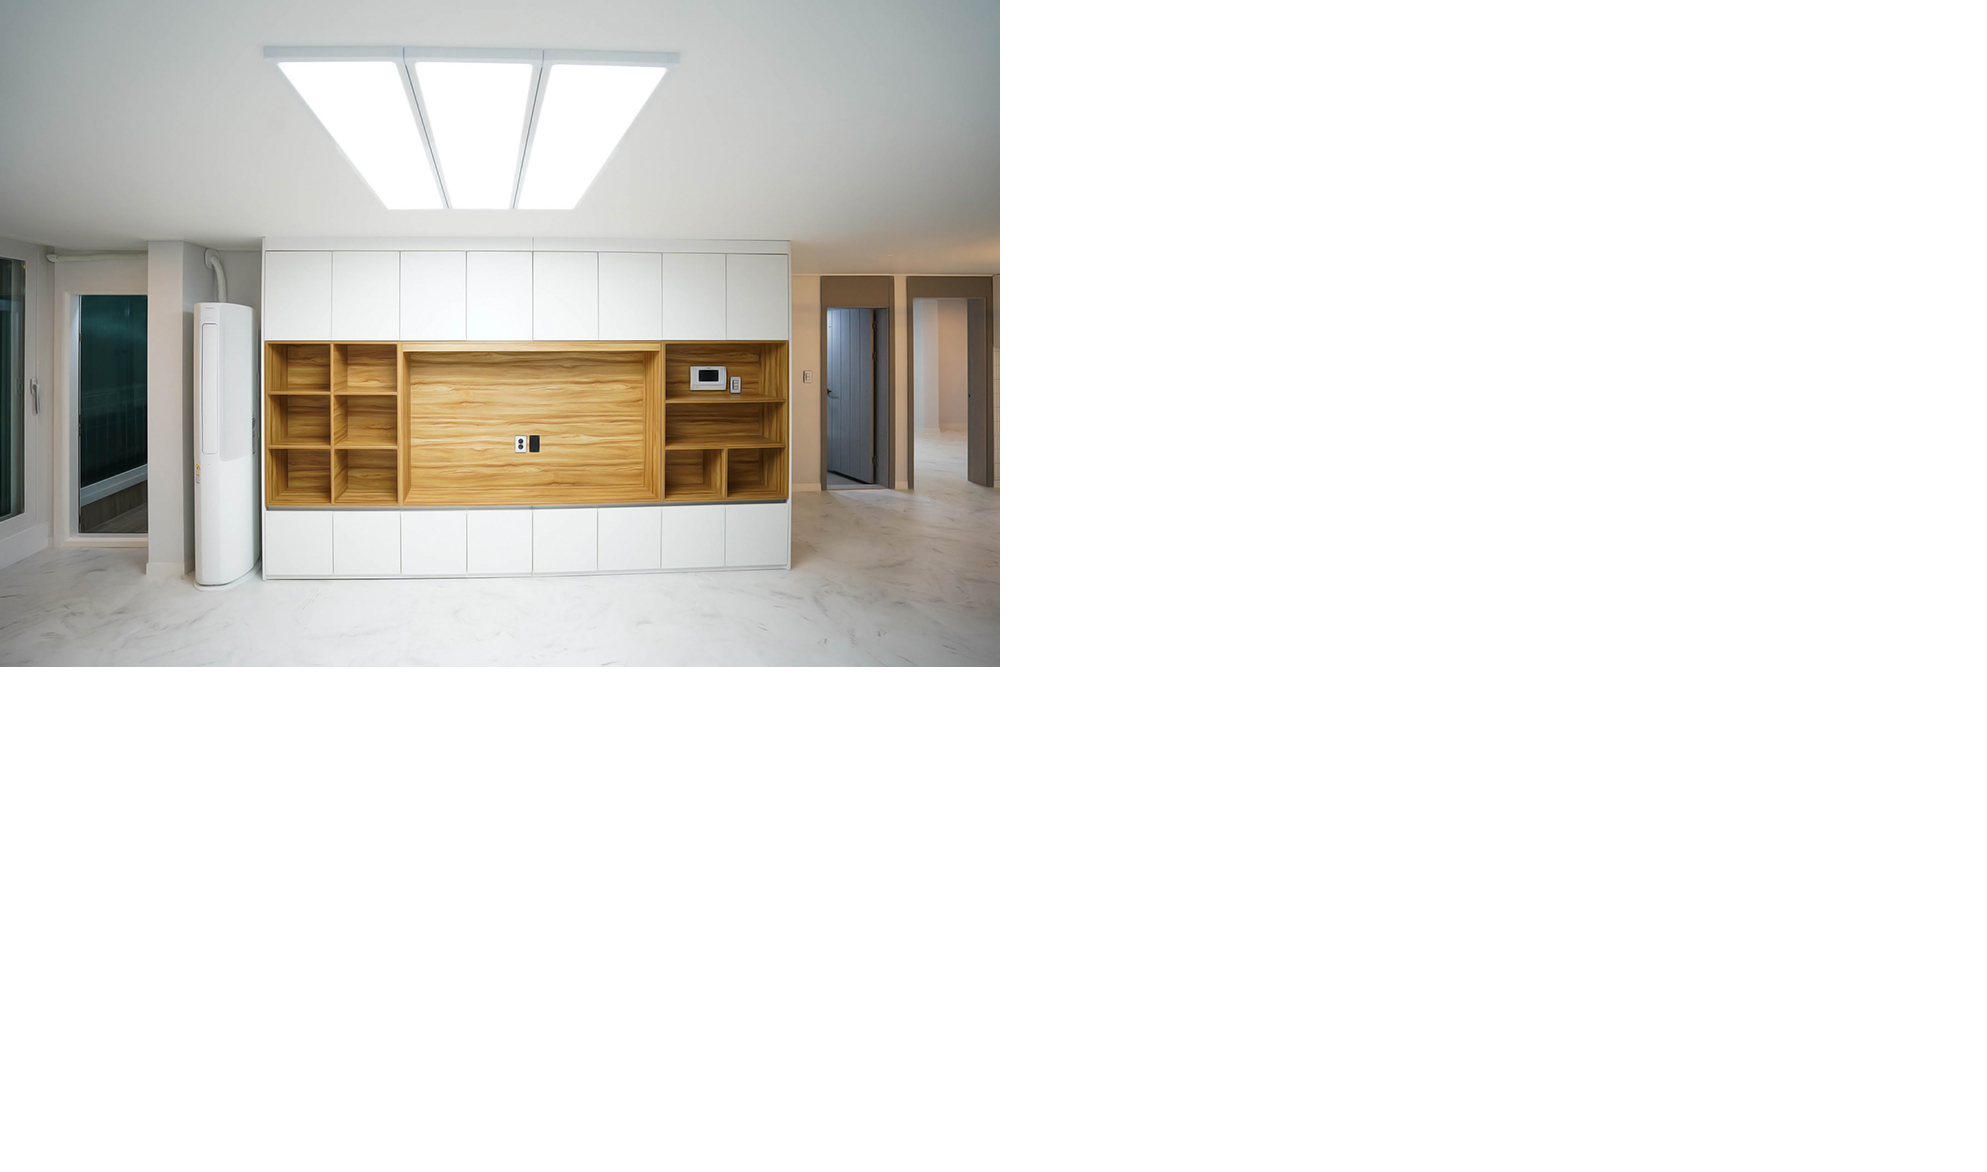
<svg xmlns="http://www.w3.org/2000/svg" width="1987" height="1172">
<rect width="100%" height="100%" fill="#fff"/>
<image href="1.png" x="0" y="0" width="1000" height="667"/>
</svg>
